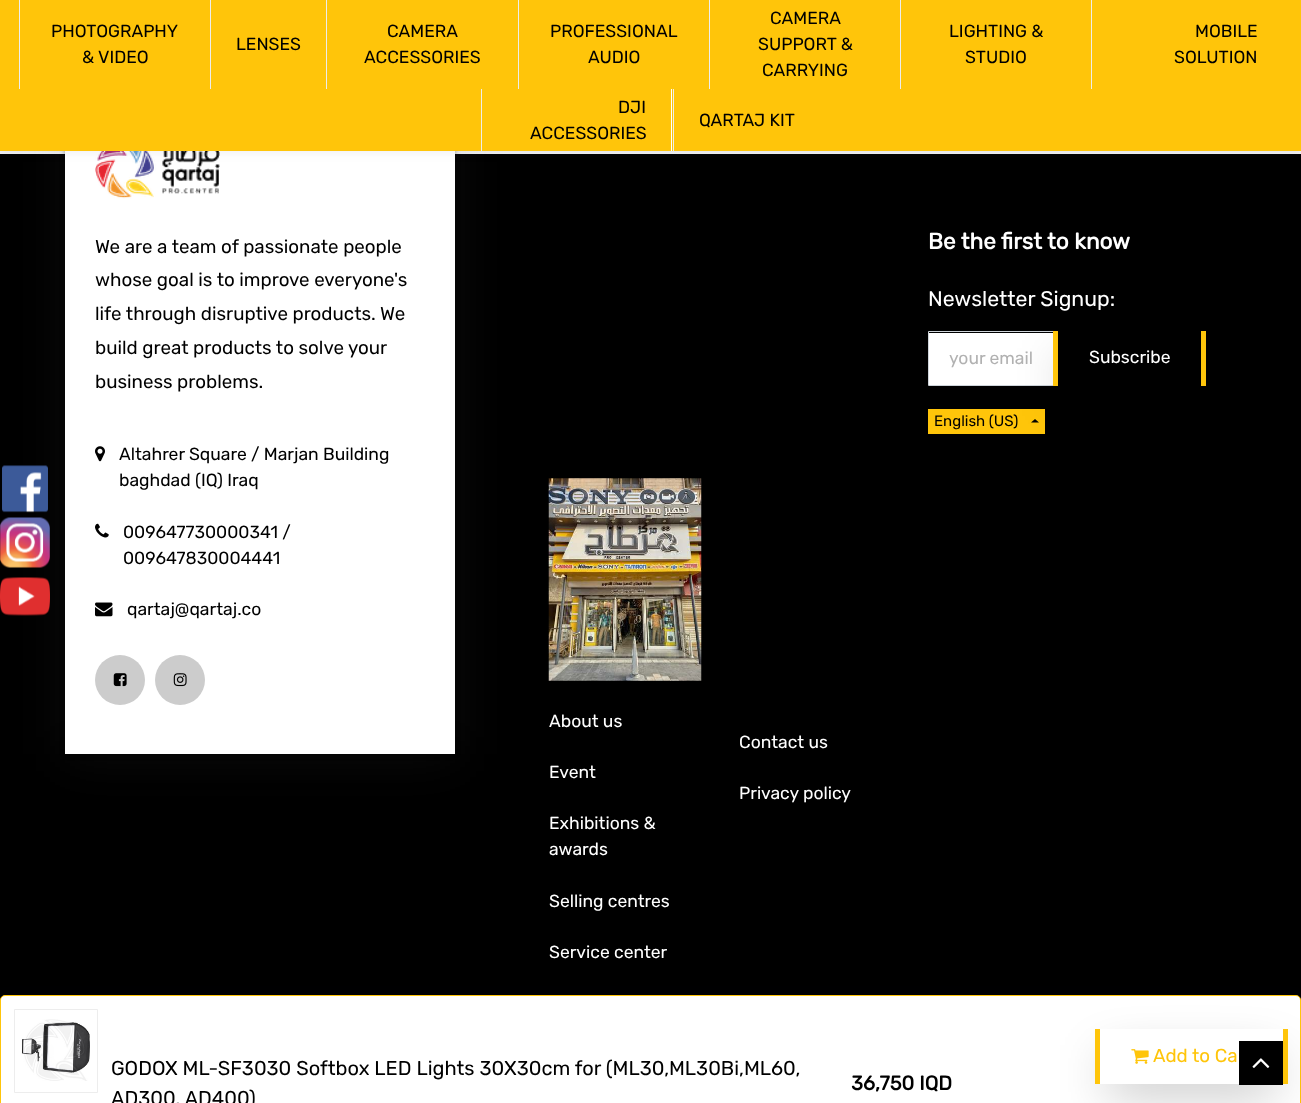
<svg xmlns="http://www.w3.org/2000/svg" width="1301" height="1103">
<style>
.a{font:300 17.5px Rubik;fill:#000}
.b{font:300 18.75px Rubik;fill:#000}
.c{font:bold 22.5px Rubik;fill:#fff}
.d{font:300 21.25px Rubik;fill:#fff}
.e{font:300 17.5px Rubik;fill:#b1b1b1}
.f{font:300 17.5px Rubik;fill:#fff}
.g{font:300 15px Rubik;fill:#000}
.h{font:300 18.75px Rubik;fill:#ffc50a}
.i{font:300 20px Rubik;fill:#000}
.j{font:bold 20px Rubik;fill:#000}
</style>
<defs>
<clipPath id="clip1"><path d="M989 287h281v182h-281zm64 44h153v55h-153z" clip-rule="evenodd"/></clipPath>
<clipPath id="clip2"><path d="M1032 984h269v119h-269zm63 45h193v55h-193z" clip-rule="evenodd"/></clipPath>
</defs>
<rect width="100%" height="100%" fill="#f2f2f2"/>
<path fill="#000" d="M0 154h1301v846H0z"/>
<path fill="#8080801a" filter="blur(25px)" d="M65 108h390v646H65z"/>
<path fill="#0000004d" filter="blur(2.5px)" d="M65 109h390v646H65z"/>
<path fill="#fff" d="M65 151h390v603H65z"/>
<image href="4.png" x="95" y="151" width="125" height="48"/>
<path fill="#32325d1a" filter="blur(6px)" d="M0 0h1301v151H0z"/>
<path fill="#ffc50a" d="M0 0h1301v151H0z"/>
<path fill="#ededed" d="M19 0h1v89H19z"/>
<path fill="#ededed" d="M210 0h1v89H210z"/>
<path fill="#ededed" d="M326 0h1v89H326z"/>
<path fill="#ededed" d="M518 0h1v89H518z"/>
<path fill="#ededed" d="M709 0h1v89H709z"/>
<path fill="#ededed" d="M900 0h1v89H900z"/>
<path fill="#ededed" d="M1091 0h1v89H1091z"/>
<path fill="#fff" d="M671 89h1v62H671z"/>
<path fill="#ededed" d="M481 89h1v62H481z"/>
<path fill="#ededed" d="M673 89h1v62H673z"/>
<image href="1.png" x="2" y="465" width="46" height="48"/>
<image href="2.png" x="0" y="517" width="50" height="51"/>
<image href="3.png" x="0" y="577" width="50" height="39"/>
<image href="5.png" x="95" y="446" width="10" height="16"/>
<image href="6.png" x="95" y="523" width="14" height="15"/>
<image href="7.png" x="95" y="602" width="18" height="15"/>
<circle fill="#ccc" cx="120" cy="680" r="25"/>
<image href="8.png" x="113" y="673" width="14" height="14"/>
<circle fill="#ccc" cx="180" cy="680" r="25"/>
<image href="9.png" x="173" y="673" width="14" height="14"/>
<path fill="#fff" d="M929 333h124v52H929z"/>
<path fill="none" stroke="#ced4da" d="M928.5 331.5h125v54H928.5z"/>
<path fill="#ffc50a" d="M928 409h117v25H928z"/>
<path fill="#000" d="M1039 422.5h-8l4-3.5z"/>
<g clip-path="url(#clip1)">
<path fill="#0000004d" filter="blur(25px)" d="M1065 363h129v30H1065z"/>
</g>
<path fill="#ffc50a" d="M1053 331h5v55H1053z"/>
<path fill="#ffc50a" d="M1201 331h5v55H1201z"/>
<image href="10.png" x="548" y="478" width="154" height="203"/>
<rect fill="#00005d1a" filter="blur(6px)" y="995" width="1301" height="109" rx="5"/>
<path fill="#fff" stroke="#ffc50a" d="M5 995.5h1291c2.5 0 4.5 2 4.5 4.5v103.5h-1300v-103.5c0-2.5 2-4.5 4.5-4.5z"/>
<g clip-path="url(#clip2)">
<path fill="#0000004d" filter="blur(25px)" d="M1108 1060h167v30H1108z"/>
</g>
<path fill="#000" d="M1239 1041h44v44H1239z"/>
<image href="11.png" x="1252" y="1058" width="18" height="10"/>
<path fill="none" stroke="#ededed" d="M14.5 1009.5h83v83H14.5z"/>
<image href="12.png" x="21" y="1019" width="69" height="62"/>
<path fill="#ffc50a" d="M1095 1029h5v55H1095z"/>
<image href="13.png" x="1131" y="1049" width="18" height="15"/>
<path fill="#ffc50a" d="M1283 1029h5v55H1283z"/>
<text class="a" x="51" y="37">PHOTOGRAPHY</text>
<text class="a" x="82" y="63">&amp; VIDEO</text>
<text class="a" x="236" y="50">LENSES</text>
<text class="a" x="387" y="37">CAMERA</text>
<text class="a" x="364" y="63">ACCESSORIES</text>
<text class="a" x="550" y="37">PROFESSIONAL</text>
<text class="a" x="588" y="63">AUDIO</text>
<text class="a" x="770" y="24">CAMERA</text>
<text class="a" x="758" y="50">SUPPORT &amp;</text>
<text class="a" x="762" y="76">CARRYING</text>
<text class="a" x="949" y="37">LIGHTING &amp;</text>
<text class="a" x="965" y="63">STUDIO</text>
<text class="a" x="1195" y="37">MOBILE</text>
<text class="a" x="1174" y="63">SOLUTION</text>
<text class="a" x="618" y="113">DJI</text>
<text class="a" x="530" y="139">ACCESSORIES</text>
<text class="a" x="699" y="126">QARTAJ KIT</text>
<text class="b" x="95" y="253">We are a team of passionate people</text>
<text class="b" x="95" y="286">whose goal is to improve everyone's</text>
<text class="b" x="95" y="320">life through disruptive products. We</text>
<text class="b" x="95" y="354">build great products to solve your</text>
<text class="b" x="95" y="388">business problems.</text>
<text class="a" x="119" y="460">Altahrer Square / Marjan Building</text>
<text class="a" x="119" y="486">baghdad (IQ) Iraq</text>
<text class="a" x="123" y="538">009647730000341 /</text>
<text class="a" x="123" y="564">009647830004441</text>
<text class="a" x="127" y="615">qartaj@qartaj.co</text>
<text class="c" x="928" y="249">Be the first to know</text>
<text class="d" x="928" y="306">Newsletter Signup:</text>
<text class="e" x="949" y="364">your email</text>
<text class="f" x="1089" y="363">Subscribe</text>
<text class="g" x="934" y="426">English (US)</text>
<text class="f" x="549" y="727">About us</text>
<text class="f" x="549" y="778">Event</text>
<text class="f" x="549" y="829">Exhibitions &amp;</text>
<text class="f" x="549" y="855">awards</text>
<text class="f" x="549" y="907">Selling centres</text>
<text class="f" x="549" y="958">Service center</text>
<text class="f" x="739" y="748">Contact us</text>
<text class="f" x="739" y="799">Privacy policy</text>
<text class="h" x="1153" y="1062">Add to Ca</text>
<text class="i" x="111" y="1075">GODOX ML-SF3030 Softbox LED Lights 30X30cm for (ML30,ML30Bi,ML60,</text>
<text class="i" x="111" y="1105">AD300, AD400)</text>
<text class="j" x="851" y="1090">36,750 IQD</text>
</svg>
